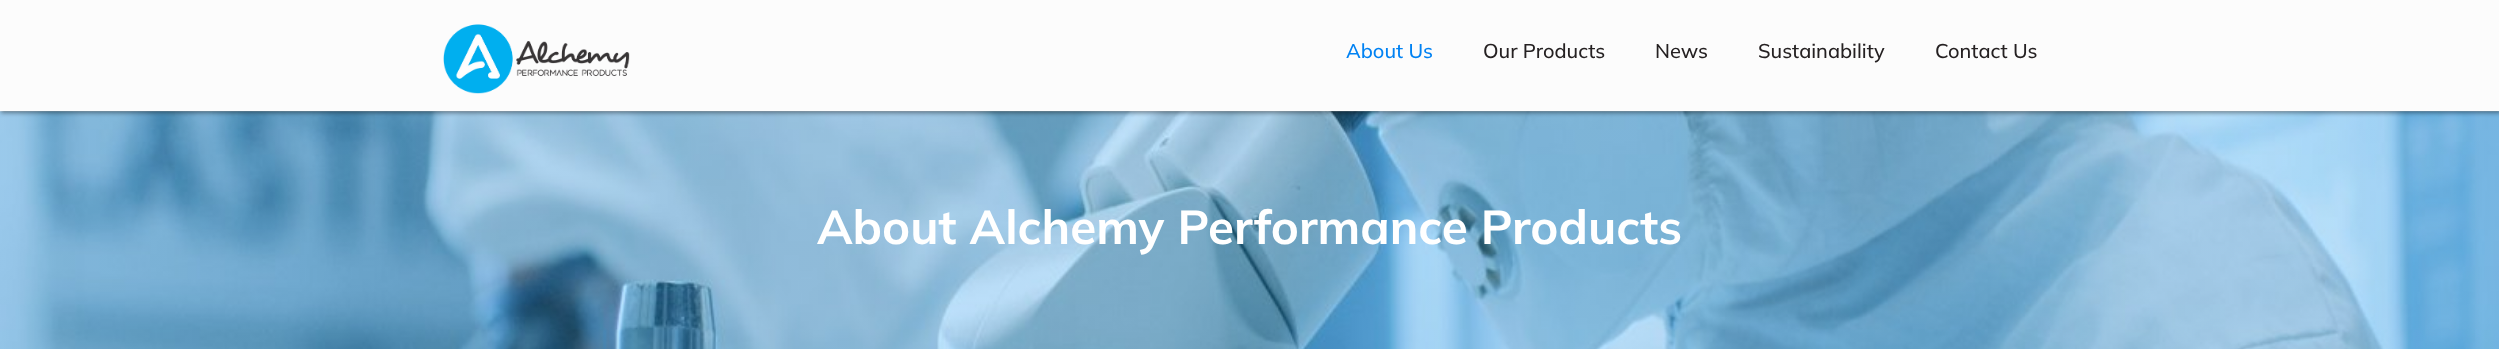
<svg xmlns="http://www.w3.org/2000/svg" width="2499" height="349">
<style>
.a{font:500 20px Mulish;fill:#0082f3}
.b{font:500 20px Mulish;fill:#252122}
.c{font:bold 47.5px Mulish;fill:#fff}
</style>
<rect width="100%" height="100%" fill="#fff"/>
<image href="2.png" x="0" y="111" width="2499" height="238"/>
<path fill="#00000066" filter="blur(2px)" d="M1 1h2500v112H1z"/>
<path fill="#fcfcfc" d="M0 0h2499v111H0z"/>
<image href="1.png" x="443" y="24" width="187" height="70"/>
<text class="a" x="1346" y="58">About Us</text>
<text class="b" x="1483" y="58">Our Products</text>
<text class="b" x="1655" y="58">News</text>
<text class="b" x="1758" y="58">Sustainability</text>
<text class="b" x="1935" y="58">Contact Us</text>
<text class="c" x="817" y="244">About Alchemy Performance Products</text>
</svg>
